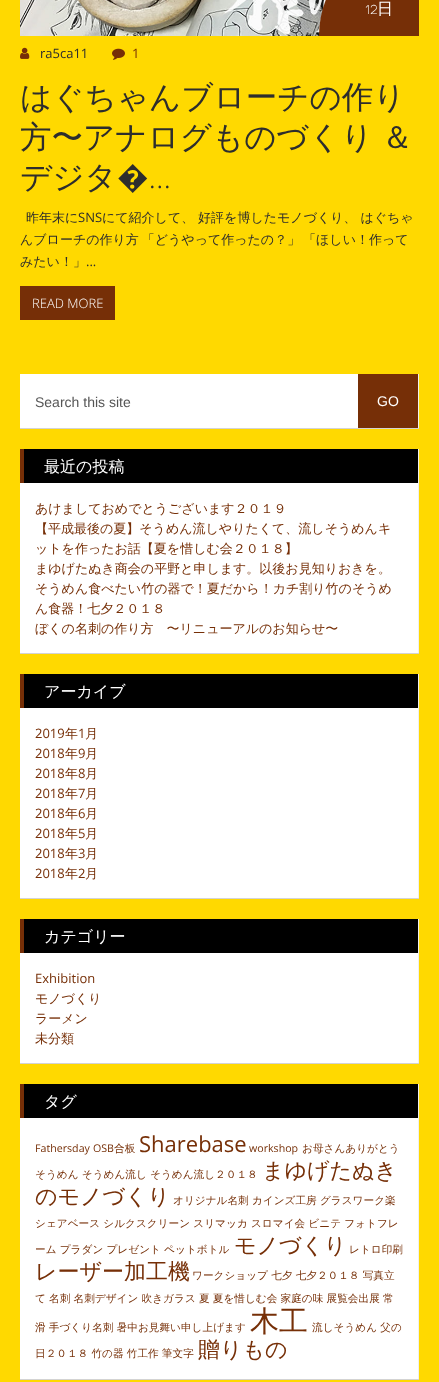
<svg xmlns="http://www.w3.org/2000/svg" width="439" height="1382">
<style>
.a{font:300 16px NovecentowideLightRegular;fill:#fff}
.b{font:500 16px WenQuanYi Zen Hei;fill:#fff}
.c{font:13px Open Sans;fill:#2d2d2d}
.d{font:13px Open Sans;fill:#762f07}
.e{font:500 31.5px WenQuanYi Zen Hei;fill:#2d2d2d}
.f{font:300 31.5px Open Sans;fill:#2d2d2d}
.g{font:500 13px WenQuanYi Zen Hei;fill:#2d2d2d}
.h{font:300 13px Open Sans;fill:#fff}
.i{font:14px Liberation Sans;fill:#555}
.j{font:14px Liberation Sans;fill:#fff}
.k{font:500 13px WenQuanYi Zen Hei;fill:#762f07}
.l{font:10.65px Open Sans;fill:#762f07}
.m{font:500 10.65px WenQuanYi Zen Hei;fill:#762f07}
.n{font:22px Open Sans;fill:#762f07}
.o{font:500 22px WenQuanYi Zen Hei;fill:#762f07}
.p{font:500 29px WenQuanYi Zen Hei;fill:#762f07}
</style>
<rect width="100%" height="100%" fill="#ffd900"/>
<image href="1.png" x="20" y="0" width="306" height="36"/>
<path fill="#762f07" d="M419-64v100h-100c0-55 45-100 100-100z"/>
<image href="2.png" x="20" y="47" width="10" height="12"/>
<image href="3.png" x="112" y="48" width="13" height="12"/>
<path fill="#762f07" d="M20 286h95v34H20z"/>
<path fill="#fff" d="M20 374h338v54H20z"/>
<path fill="#f0f0f0" d="M418 374h1v55H418z"/>
<path fill="#d3d3d3" d="M20 428h399v1H20z"/>
<path fill="#762f07" d="M358 374h60v54H358z"/>
<path fill="#fff" d="M20 483h398v170H20z"/>
<path fill="#f0f0f0" d="M418 449h1v205H418z"/>
<path fill="#d3d3d3" d="M20 653h399v1H20z"/>
<path fill="#000" d="M24 449h394v34H24z"/>
<path fill="#762f07" d="M20 449h4v34H20z"/>
<path fill="#fff" d="M20 708h398v190H20z"/>
<path fill="#f0f0f0" d="M418 674h1v225H418z"/>
<path fill="#d3d3d3" d="M20 898h399v1H20z"/>
<path fill="#000" d="M24 674h394v34H24z"/>
<path fill="#762f07" d="M20 674h4v34H20z"/>
<path fill="#fff" d="M20 953h398v110H20z"/>
<path fill="#f0f0f0" d="M418 919h1v145H418z"/>
<path fill="#d3d3d3" d="M20 1063h399v1H20z"/>
<path fill="#000" d="M24 919h394v34H24z"/>
<path fill="#762f07" d="M20 919h4v34H20z"/>
<path fill="#fff" d="M20 1118h398v261H20z"/>
<path fill="#f0f0f0" d="M418 1084h1v296H418z"/>
<path fill="#d3d3d3" d="M20 1379h399v1H20z"/>
<path fill="#000" d="M24 1084h394v34H24z"/>
<path fill="#762f07" d="M20 1084h4v34H20z"/>
<text class="a" x="365" y="14">12</text>
<text class="b" x="377" y="14">日</text>
<text class="c" x="40" y="58">ra5ca11</text>
<text class="d" x="132" y="58">1</text>
<text class="e" x="20" y="108">はぐちゃんブローチの作り</text>
<text class="e" x="20" y="148" word-spacing="-1">方〜アナログものづくり ＆</text>
<text class="e" x="20" y="188">デジタ</text>
<text class="f" x="117" y="188">�...</text>
<text class="g" x="26" y="222">昨年末に</text>
<text class="c" x="78" y="222">SNS</text>
<text class="g" x="102" y="222">にて紹介して、 好評を博したモノづくり、 はぐちゃ</text>
<text class="g" x="20" y="244" word-spacing="-1">んブローチの作り方 「どうやって作ったの？」 「ほしい！作って</text>
<text class="g" x="20" y="266">みたい！」</text>
<text class="c" x="86" y="266">...</text>
<text class="h" x="32" y="308">READ MORE</text>
<text class="i" x="35" y="407">Search this site</text>
<text class="j" x="377" y="406">GO</text>
<text class="b" x="44" y="472">最近の投稿</text>
<text class="k" x="35" y="513">あけましておめでとうございます２０１９</text>
<text class="k" x="35" y="533">【平成最後の夏】そうめん流しやりたくて、流しそうめんキ</text>
<text class="k" x="35" y="553">ットを作ったお話【夏を惜しむ会２０１８】</text>
<text class="k" x="35" y="573">まゆげたぬき商会の平野と申します。以後お見知りおきを。</text>
<text class="k" x="35" y="593">そうめん食べたい竹の器で！夏だから！カチ割り竹のそうめ</text>
<text class="k" x="35" y="613">ん食器！七夕２０１８</text>
<text class="k" x="35" y="633">ぼくの名刺の作り方　〜リニューアルのお知らせ〜</text>
<text class="b" x="44" y="697">アーカイブ</text>
<text class="d" x="35" y="738">2019</text>
<text class="k" x="65" y="738">年</text>
<text class="d" x="78" y="738">1</text>
<text class="k" x="85" y="738">月</text>
<text class="d" x="35" y="758">2018</text>
<text class="k" x="65" y="758">年</text>
<text class="d" x="78" y="758">9</text>
<text class="k" x="85" y="758">月</text>
<text class="d" x="35" y="778">2018</text>
<text class="k" x="65" y="778">年</text>
<text class="d" x="78" y="778">8</text>
<text class="k" x="85" y="778">月</text>
<text class="d" x="35" y="798">2018</text>
<text class="k" x="65" y="798">年</text>
<text class="d" x="78" y="798">7</text>
<text class="k" x="85" y="798">月</text>
<text class="d" x="35" y="818">2018</text>
<text class="k" x="65" y="818">年</text>
<text class="d" x="78" y="818">6</text>
<text class="k" x="85" y="818">月</text>
<text class="d" x="35" y="838">2018</text>
<text class="k" x="65" y="838">年</text>
<text class="d" x="78" y="838">5</text>
<text class="k" x="85" y="838">月</text>
<text class="d" x="35" y="858">2018</text>
<text class="k" x="65" y="858">年</text>
<text class="d" x="78" y="858">3</text>
<text class="k" x="85" y="858">月</text>
<text class="d" x="35" y="878">2018</text>
<text class="k" x="65" y="878">年</text>
<text class="d" x="78" y="878">2</text>
<text class="k" x="85" y="878">月</text>
<text class="b" x="44" y="942">カテゴリー</text>
<text class="d" x="35" y="983">Exhibition</text>
<text class="k" x="35" y="1003">モノづくり</text>
<text class="k" x="35" y="1023">ラーメン</text>
<text class="k" x="35" y="1043">未分類</text>
<text class="b" x="44" y="1107">タグ</text>
<text class="l" x="35" y="1152">Fathersday</text>
<text class="l" x="93" y="1152">OSB</text>
<text class="m" x="114" y="1152">合板</text>
<text class="n" x="139" y="1152">Sharebase</text>
<text class="l" x="249" y="1152">workshop</text>
<text class="m" x="302" y="1152">お母さんありがとう</text>
<text class="m" x="35" y="1178">そうめん そうめん流し そうめん流し２０１８</text>
<text class="o" x="262" y="1178">まゆげたぬき</text>
<text class="o" x="35" y="1204">のモノづくり</text>
<text class="m" x="173" y="1204">オリジナル名刺 カインズ工房 グラスワーク楽</text>
<text class="m" x="35" y="1227">シェアベース シルクスクリーン スリマッカ スロマイ会 ビニテ フォトフレ</text>
<text class="m" x="35" y="1253">ーム プラダン プレゼント ペットボトル</text>
<text class="o" x="234" y="1253">モノづくり</text>
<text class="m" x="349" y="1253">レトロ印刷</text>
<text class="o" x="35" y="1279">レーザー加工機</text>
<text class="m" x="192" y="1279">ワークショップ 七夕 七夕２０１８ 写真立</text>
<text class="m" x="35" y="1302">て 名刺 名刺デザイン 吹きガラス 夏 夏を惜しむ会 家庭の味 展覧会出展 常</text>
<text class="m" x="35" y="1331">滑 手づくり名刺 暑中お見舞い申し上げます</text>
<text class="p" x="250" y="1331">木工</text>
<text class="m" x="312" y="1331">流しそうめん 父の</text>
<text class="m" x="35" y="1357">日２０１８ 竹の器 竹工作 筆文字</text>
<text class="o" x="198" y="1357">贈りもの</text>
</svg>
